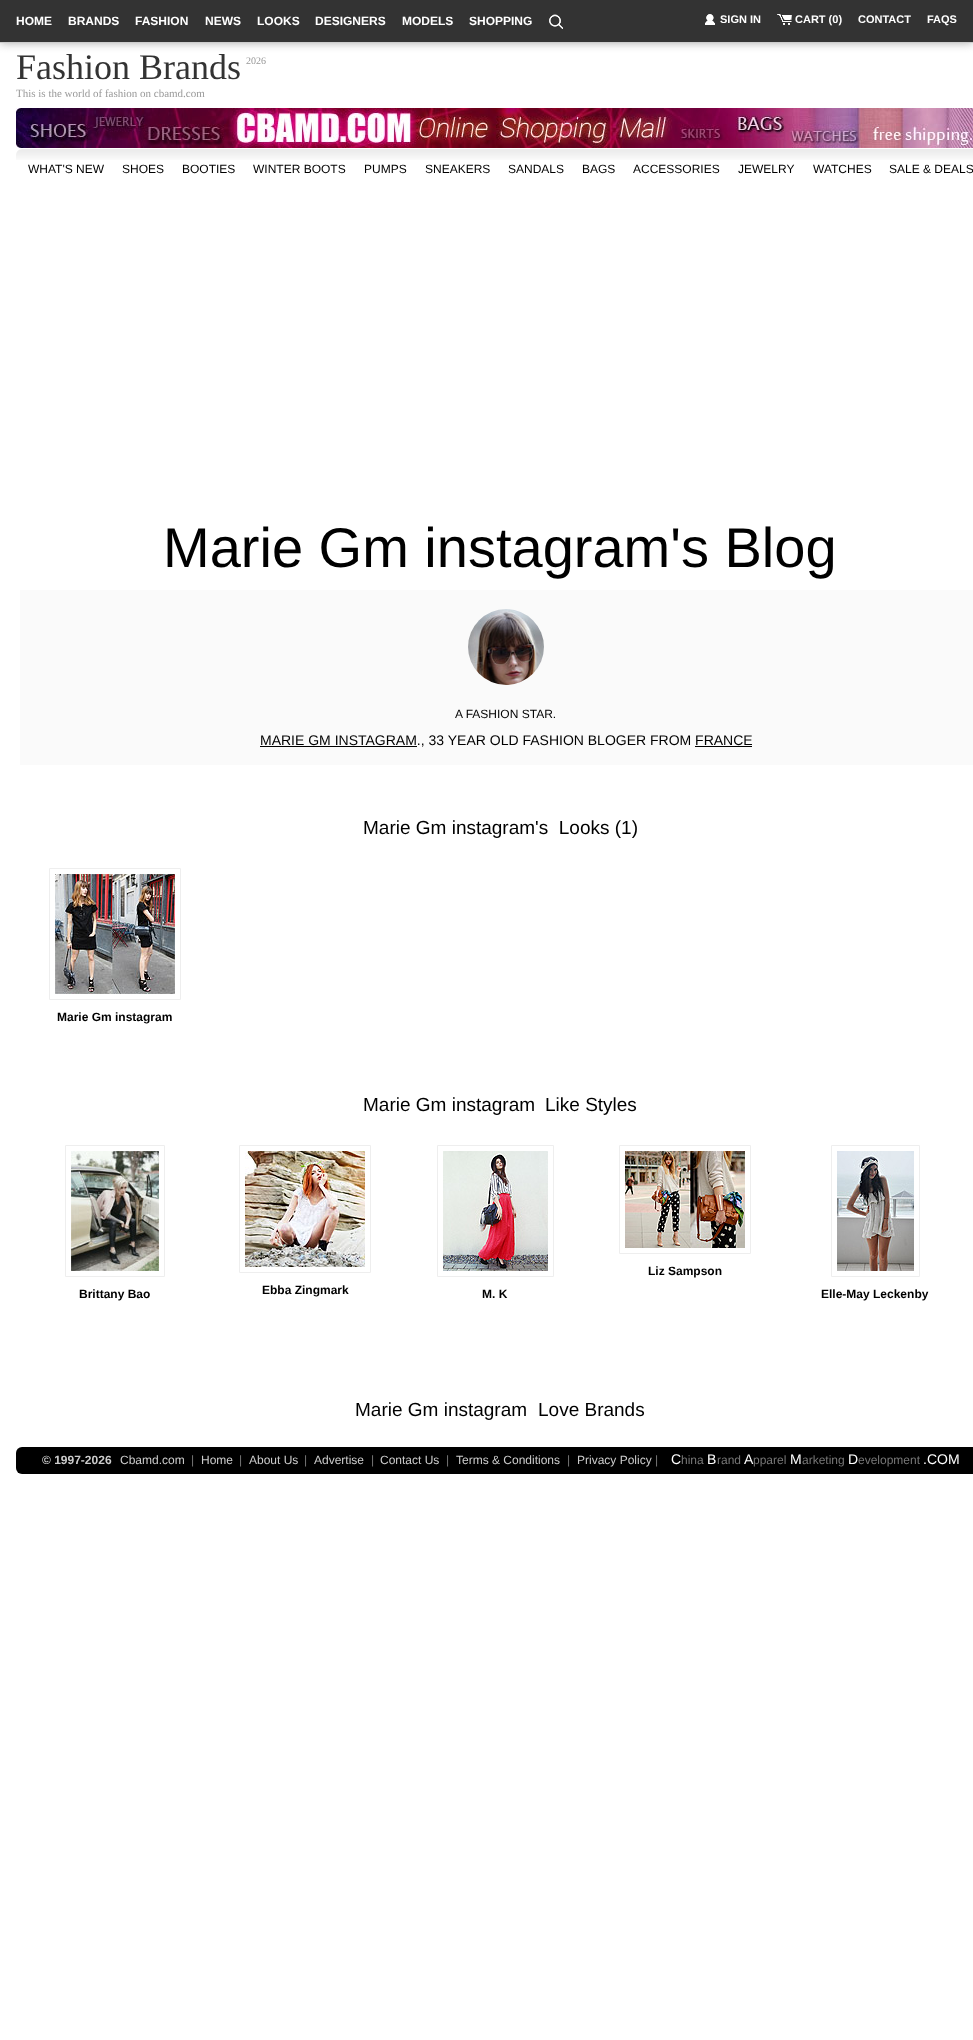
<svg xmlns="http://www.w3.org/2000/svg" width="973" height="2040">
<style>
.a{font:bold 12px Liberation Sans;fill:#fff}
.b{font:bold 11px Liberation Sans;fill:#fff}
.c{font:36px Liberation Serif;fill:#333}
.d{font:10px Liberation Serif;fill:#999}
.e{font:11px Liberation Serif;fill:#999}
.f{font:12px Liberation Sans;fill:#000}
.g{font:56px Liberation Sans;fill:#000}
.h{font:14px Liberation Sans;fill:#000}
.i{font:19px Liberation Sans;fill:#000}
.j{font:bold 12px Liberation Sans;fill:#000}
.k{font:bold 12px Liberation Sans;fill:#ccc}
.l{font:12px Liberation Sans;fill:#ccc}
.m{font:12px Liberation Sans;fill:#777}
.n{font:14px Liberation Sans;fill:#fff}
</style>
<defs>
<clipPath id="clip1"><path d="M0 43h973v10H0z"/></clipPath>
</defs>
<rect width="100%" height="100%" fill="#fff"/>
<path fill="#333" d="M0 0h973v42H0z"/>
<g clip-path="url(#clip1)">
<path fill="#aaa" filter="blur(5px)" d="M0 0h973v43H0z"/>
</g>
<path fill="#ccc" d="M0 42h973v1H0z"/>
<image href="1.png" x="549" y="14" width="14" height="15"/>
<image href="2.png" x="705" y="14" width="10" height="11"/>
<image href="3.png" x="777" y="14" width="15" height="11"/>
<image href="4.png" x="16" y="108" width="957" height="40"/>
<image href="5.png" x="16" y="149" width="957" height="11"/>
<path fill="#fafafa" d="M20 590h953v175H20z"/>
<image href="6.png" x="468" y="609" width="76" height="76"/>
<path fill="#000" d="M260 746h157v1H260z"/>
<path fill="#000" d="M695 746h57v1H695z"/>
<path fill="none" stroke="#eee" d="M49.5 868.5h131v131H49.5z"/>
<image href="7.png" x="55" y="874" width="120" height="120"/>
<path fill="none" stroke="#eee" d="M619.5 1145.5h131v108H619.5z"/>
<image href="8.png" x="625" y="1151" width="120" height="97"/>
<path fill="none" stroke="#eee" d="M65.5 1145.5h99v131H65.5z"/>
<image href="9.png" x="71" y="1151" width="88" height="120"/>
<path fill="none" stroke="#eee" d="M239.5 1145.5h131v127H239.5z"/>
<image href="10.png" x="245" y="1151" width="120" height="116"/>
<path fill="none" stroke="#eee" d="M437.5 1145.5h116v131H437.5z"/>
<image href="11.png" x="443" y="1151" width="105" height="120"/>
<path fill="none" stroke="#eee" d="M831.5 1145.5h88v131H831.5z"/>
<image href="12.png" x="837" y="1151" width="77" height="120"/>
<rect fill="#000" x="16" y="1447" width="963" height="27" rx="6"/>
<text class="a" x="16" y="25">HOME</text>
<text class="a" x="68" y="25">BRANDS</text>
<text class="a" x="135" y="25">FASHION</text>
<text class="a" x="205" y="25">NEWS</text>
<text class="a" x="257" y="25">LOOKS</text>
<text class="a" x="315" y="25">DESIGNERS</text>
<text class="a" x="402" y="25">MODELS</text>
<text class="a" x="469" y="25">SHOPPING</text>
<text class="b" x="720" y="23">SIGN IN</text>
<text class="b" x="795" y="23">CART (0)</text>
<text class="b" x="858" y="23">CONTACT</text>
<text class="b" x="927" y="23">FAQS</text>
<text class="c" x="16" y="79">Fashion Brands</text>
<text class="d" x="246" y="64">2026</text>
<text class="e" x="16" y="97">This is the world of fashion on cbamd.com</text>
<text class="f" x="28" y="173">WHAT'S NEW</text>
<text class="f" x="122" y="173">SHOES</text>
<text class="f" x="182" y="173">BOOTIES</text>
<text class="f" x="253" y="173">WINTER BOOTS</text>
<text class="f" x="364" y="173">PUMPS</text>
<text class="f" x="425" y="173">SNEAKERS</text>
<text class="f" x="508" y="173">SANDALS</text>
<text class="f" x="582" y="173">BAGS</text>
<text class="f" x="633" y="173">ACCESSORIES</text>
<text class="f" x="738" y="173">JEWELRY</text>
<text class="f" x="813" y="173">WATCHES</text>
<text class="f" x="889" y="173">SALE &amp; DEALS</text>
<text class="g" x="163" y="567">Marie Gm instagram's Blog</text>
<text class="f" x="455" y="718">A FASHION STAR.</text>
<text class="h" x="260" y="745">MARIE GM INSTAGRAM., 33 YEAR OLD FASHION BLOGER FROM FRANCE</text>
<text class="i" xml:space="preserve" x="363" y="834">Marie Gm instagram's  Looks (1)</text>
<text class="j" x="57" y="1021">Marie Gm instagram</text>
<text class="i" x="363" y="1111">Marie Gm instagram</text>
<text class="i" x="545" y="1111">Like Styles</text>
<text class="j" x="648" y="1275">Liz Sampson</text>
<text class="j" x="79" y="1298">Brittany Bao</text>
<text class="j" x="262" y="1294">Ebba Zingmark</text>
<text class="j" x="482" y="1298">M. K</text>
<text class="j" x="821" y="1298">Elle-May Leckenby</text>
<text class="i" x="355" y="1416">Marie Gm instagram</text>
<text class="i" x="538" y="1416">Love Brands</text>
<text class="k" x="42" y="1464">© 1997-2026</text>
<text class="l" x="120" y="1464">Cbamd.com</text>
<text class="m" x="191" y="1464">|</text>
<text class="l" x="201" y="1464">Home</text>
<text class="m" x="239" y="1464">|</text>
<text class="l" x="249" y="1464">About Us</text>
<text class="m" x="304" y="1464">|</text>
<text class="l" x="314" y="1464">Advertise</text>
<text class="m" x="371" y="1464">|</text>
<text class="l" x="380" y="1464">Contact Us</text>
<text class="m" x="446" y="1464">|</text>
<text class="l" x="456" y="1464">Terms &amp; Conditions</text>
<text class="m" x="567" y="1464">|</text>
<text class="l" x="577" y="1464">Privacy Policy</text>
<text class="m" x="655" y="1464">|</text>
<text class="n" x="671" y="1464">C</text>
<text class="m" x="681" y="1464">hina</text>
<text class="n" x="707" y="1464">B</text>
<text class="m" x="717" y="1464">rand</text>
<text class="n" x="744" y="1464">A</text>
<text class="m" x="753" y="1464">pparel</text>
<text class="n" x="790" y="1464">M</text>
<text class="m" x="802" y="1464">arketing</text>
<text class="n" x="848" y="1464">D</text>
<text class="m" x="858" y="1464">evelopment</text>
<text class="n" x="923" y="1464">.COM</text>
</svg>
